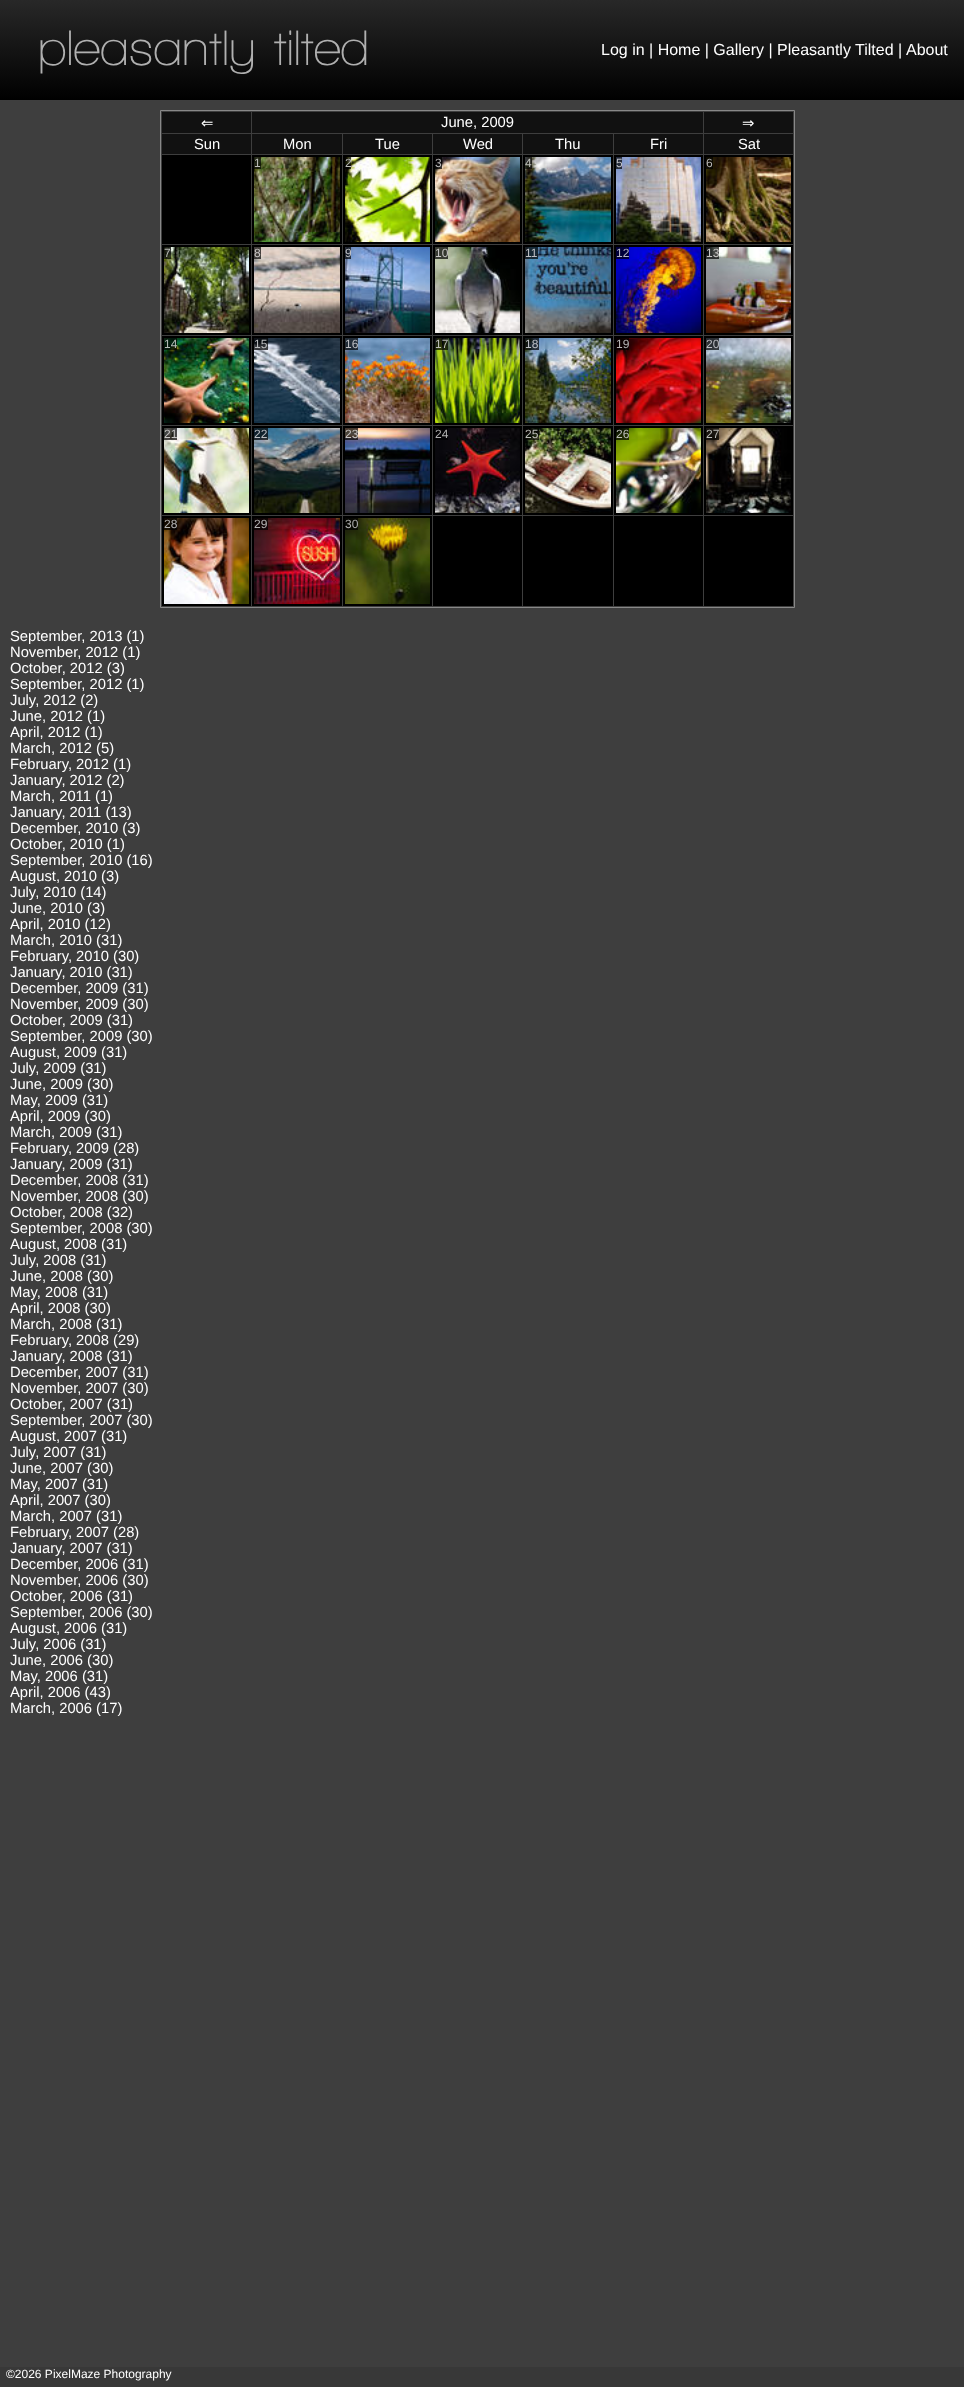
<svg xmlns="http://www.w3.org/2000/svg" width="964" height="2387">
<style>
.a{font:600 50.75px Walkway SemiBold;fill:#b0b0b0}
.b{font:16px Liberation Sans;fill:#fff}
.c{font:14.75px DejaVu Sans;fill:#fff}
.d{font:14.75px Liberation Sans;fill:#fff}
.e{font:12px Liberation Sans;fill:#bcbdb8}
.f{font:12px Liberation Sans;fill:#b6b5b5}
.g{font:12px Liberation Sans;fill:#bdbfc4}
.h{font:12px Liberation Sans;fill:#c7c5c4}
.i{font:12px Liberation Sans;fill:#b3b3c4}
.j{font:12px Liberation Sans;fill:#b5bcb7}
.k{font:12px Liberation Sans;fill:#bbbcbe}
.l{font:12px Liberation Sans;fill:#b0b0b0}
.m{font:12px Liberation Sans;fill:#fff}
</style>
<defs>
<linearGradient id="g1" gradientUnits="userSpaceOnUse" x1="482" y1="0" x2="482" y2="100"><stop offset="0" stop-color="#282828"/><stop offset="1" stop-color="#000"/></linearGradient>
</defs>
<rect width="100%" height="100%" fill="#3e3e3e"/>
<path fill="url(#g1)" d="M0 0h964v100H0z"/>
<path fill="none" stroke="#888" d="M160.5 110.5h634v497H160.5z"/>
<path fill="#111" d="M162 112h89v21H162z"/>
<path fill="#111" d="M252 112h451v21H252z"/>
<path fill="#111" d="M704 112h89v21H704z"/>
<path fill="#111" d="M162 134h89v20H162z"/>
<path fill="#111" d="M252 134h90v20H252z"/>
<path fill="#111" d="M343 134h89v20H343z"/>
<path fill="#111" d="M433 134h89v20H433z"/>
<path fill="#111" d="M523 134h90v20H523z"/>
<path fill="#111" d="M614 134h89v20H614z"/>
<path fill="#111" d="M704 134h89v20H704z"/>
<path fill="#000" d="M162 155h89v89H162z"/>
<path fill="#000" d="M252 155h90v89H252z"/>
<image href="1.png" x="254" y="157" width="86" height="85"/>
<path fill="#000000b3" d="M254 157h7v12H254z"/>
<path fill="#000" d="M343 155h89v89H343z"/>
<image href="2.png" x="345" y="157" width="85" height="85"/>
<path fill="#000000b3" d="M345 157h6v12H345z"/>
<path fill="#000" d="M433 155h89v89H433z"/>
<image href="3.png" x="435" y="157" width="85" height="85"/>
<path fill="#000000b3" d="M435 157h7v12H435z"/>
<path fill="#000" d="M523 155h90v89H523z"/>
<image href="4.png" x="525" y="157" width="86" height="85"/>
<path fill="#000000b3" d="M525 157h7v12H525z"/>
<path fill="#000" d="M614 155h89v89H614z"/>
<image href="5.png" x="616" y="157" width="85" height="85"/>
<path fill="#000000b3" d="M616 157h6v12H616z"/>
<path fill="#000" d="M704 155h89v89H704z"/>
<image href="6.png" x="706" y="157" width="85" height="85"/>
<path fill="#000000b3" d="M706 157h7v12H706z"/>
<path fill="#000" d="M162 245h89v90H162z"/>
<image href="7.png" x="164" y="247" width="85" height="86"/>
<path fill="#000000b3" d="M164 247h7v12H164z"/>
<path fill="#000" d="M252 245h90v90H252z"/>
<image href="8.png" x="254" y="247" width="86" height="86"/>
<path fill="#000000b3" d="M254 247h7v12H254z"/>
<path fill="#000" d="M343 245h89v90H343z"/>
<image href="9.png" x="345" y="247" width="85" height="86"/>
<path fill="#000000b3" d="M345 247h6v12H345z"/>
<path fill="#000" d="M433 245h89v90H433z"/>
<image href="10.png" x="435" y="247" width="85" height="86"/>
<path fill="#000000b3" d="M435 247h13v12H435z"/>
<path fill="#000" d="M523 245h90v90H523z"/>
<image href="11.png" x="525" y="247" width="86" height="86"/>
<path fill="#000000b3" d="M525 247h13v12H525z"/>
<path fill="#000" d="M614 245h89v90H614z"/>
<image href="12.png" x="616" y="247" width="85" height="86"/>
<path fill="#000000b3" d="M616 247h13v12H616z"/>
<path fill="#000" d="M704 245h89v90H704z"/>
<image href="13.png" x="706" y="247" width="85" height="86"/>
<path fill="#000000b3" d="M706 247h13v12H706z"/>
<path fill="#000" d="M162 336h89v89H162z"/>
<image href="14.png" x="164" y="338" width="85" height="85"/>
<path fill="#000000b3" d="M164 338h13v12H164z"/>
<path fill="#000" d="M252 336h90v89H252z"/>
<image href="15.png" x="254" y="338" width="86" height="85"/>
<path fill="#000000b3" d="M254 338h14v12H254z"/>
<path fill="#000" d="M343 336h89v89H343z"/>
<image href="16.png" x="345" y="338" width="85" height="85"/>
<path fill="#000000b3" d="M345 338h13v12H345z"/>
<path fill="#000" d="M433 336h89v89H433z"/>
<image href="17.png" x="435" y="338" width="85" height="85"/>
<path fill="#000000b3" d="M435 338h13v12H435z"/>
<path fill="#000" d="M523 336h90v89H523z"/>
<image href="18.png" x="525" y="338" width="86" height="85"/>
<path fill="#000000b3" d="M525 338h14v12H525z"/>
<path fill="#000" d="M614 336h89v89H614z"/>
<image href="19.png" x="616" y="338" width="85" height="85"/>
<path fill="#000000b3" d="M616 338h13v12H616z"/>
<path fill="#000" d="M704 336h89v89H704z"/>
<image href="20.png" x="706" y="338" width="85" height="85"/>
<path fill="#000000b3" d="M706 338h13v12H706z"/>
<path fill="#000" d="M162 426h89v89H162z"/>
<image href="21.png" x="164" y="428" width="85" height="85"/>
<path fill="#000000b3" d="M164 428h13v12H164z"/>
<path fill="#000" d="M252 426h90v89H252z"/>
<image href="22.png" x="254" y="428" width="86" height="85"/>
<path fill="#000000b3" d="M254 428h14v12H254z"/>
<path fill="#000" d="M343 426h89v89H343z"/>
<image href="23.png" x="345" y="428" width="85" height="85"/>
<path fill="#000000b3" d="M345 428h13v12H345z"/>
<path fill="#000" d="M433 426h89v89H433z"/>
<image href="24.png" x="435" y="428" width="85" height="85"/>
<path fill="#000000b3" d="M435 428h13v12H435z"/>
<path fill="#000" d="M523 426h90v89H523z"/>
<image href="25.png" x="525" y="428" width="86" height="85"/>
<path fill="#000000b3" d="M525 428h14v12H525z"/>
<path fill="#000" d="M614 426h89v89H614z"/>
<image href="26.png" x="616" y="428" width="85" height="85"/>
<path fill="#000000b3" d="M616 428h13v12H616z"/>
<path fill="#000" d="M704 426h89v89H704z"/>
<image href="27.png" x="706" y="428" width="85" height="85"/>
<path fill="#000000b3" d="M706 428h13v12H706z"/>
<path fill="#000" d="M162 516h89v90H162z"/>
<image href="28.png" x="164" y="518" width="85" height="86"/>
<path fill="#000000b3" d="M164 518h13v12H164z"/>
<path fill="#000" d="M252 516h90v90H252z"/>
<image href="29.png" x="254" y="518" width="86" height="86"/>
<path fill="#000000b3" d="M254 518h14v12H254z"/>
<path fill="#000" d="M343 516h89v90H343z"/>
<image href="30.png" x="345" y="518" width="85" height="86"/>
<path fill="#000000b3" d="M345 518h13v12H345z"/>
<path fill="#000" d="M433 516h89v90H433z"/>
<path fill="#000" d="M523 516h90v90H523z"/>
<path fill="#000" d="M614 516h89v90H614z"/>
<path fill="#000" d="M704 516h89v90H704z"/>
<path fill="#383838" d="M0 2367h964v20H0z"/>
<text class="a" x="38" y="65">pleasantly tilted</text>
<text class="b" x="601" y="55">Log in | Home | Gallery | Pleasantly Tilted</text>
<text class="b" x="898" y="55">|</text>
<text class="b" x="906" y="55">About</text>
<text class="c" x="201" y="128">⇐</text>
<text class="d" x="441" y="127">June, 2009</text>
<text class="c" x="742" y="128">⇒</text>
<text class="d" x="194" y="149">Sun</text>
<text class="d" x="283" y="149">Mon</text>
<text class="d" x="375" y="149">Tue</text>
<text class="d" x="463" y="149">Wed</text>
<text class="d" x="555" y="149">Thu</text>
<text class="d" x="650" y="149">Fri</text>
<text class="d" x="738" y="149">Sat</text>
<text class="e" x="254" y="167">1</text>
<text class="e" x="345" y="167">2</text>
<text class="f" x="435" y="167">3</text>
<text class="e" x="525" y="167">4</text>
<text class="g" x="616" y="167">5</text>
<text class="f" x="706" y="167">6</text>
<text class="e" x="164" y="257">7</text>
<text class="h" x="254" y="257">8</text>
<text class="g" x="345" y="257">9</text>
<text class="h" x="435" y="257">10</text>
<text class="g" x="525" y="257">11</text>
<text class="i" x="616" y="257">12</text>
<text class="h" x="706" y="257">13</text>
<text class="j" x="164" y="348">14</text>
<text class="k" x="254" y="348">15</text>
<text class="g" x="345" y="348">16</text>
<text class="e" x="435" y="348">17</text>
<text class="g" x="525" y="348">18</text>
<text class="f" x="616" y="348">19</text>
<text class="g" x="706" y="348">20</text>
<text class="h" x="164" y="438">21</text>
<text class="g" x="254" y="438">22</text>
<text class="h" x="345" y="438">23</text>
<text class="l" x="435" y="438">24</text>
<text class="e" x="525" y="438">25</text>
<text class="e" x="616" y="438">26</text>
<text class="e" x="706" y="438">27</text>
<text class="f" x="164" y="528">28</text>
<text class="f" x="254" y="528">29</text>
<text class="l" x="345" y="528">30</text>
<text class="d" x="10" y="641">September, 2013 (1)</text>
<text class="d" x="10" y="657">November, 2012 (1)</text>
<text class="d" x="10" y="673">October, 2012 (3)</text>
<text class="d" x="10" y="689">September, 2012 (1)</text>
<text class="d" x="10" y="705">July, 2012 (2)</text>
<text class="d" x="10" y="721">June, 2012 (1)</text>
<text class="d" x="10" y="737">April, 2012 (1)</text>
<text class="d" x="10" y="753">March, 2012 (5)</text>
<text class="d" x="10" y="769">February, 2012 (1)</text>
<text class="d" x="10" y="785">January, 2012 (2)</text>
<text class="d" x="10" y="801">March, 2011 (1)</text>
<text class="d" x="10" y="817">January, 2011 (13)</text>
<text class="d" x="10" y="833">December, 2010 (3)</text>
<text class="d" x="10" y="849">October, 2010 (1)</text>
<text class="d" x="10" y="865">September, 2010 (16)</text>
<text class="d" x="10" y="881">August, 2010 (3)</text>
<text class="d" x="10" y="897">July, 2010 (14)</text>
<text class="d" x="10" y="913">June, 2010 (3)</text>
<text class="d" x="10" y="929">April, 2010 (12)</text>
<text class="d" x="10" y="945">March, 2010 (31)</text>
<text class="d" x="10" y="961">February, 2010 (30)</text>
<text class="d" x="10" y="977">January, 2010 (31)</text>
<text class="d" x="10" y="993">December, 2009 (31)</text>
<text class="d" x="10" y="1009">November, 2009 (30)</text>
<text class="d" x="10" y="1025">October, 2009 (31)</text>
<text class="d" x="10" y="1041">September, 2009 (30)</text>
<text class="d" x="10" y="1057">August, 2009 (31)</text>
<text class="d" x="10" y="1073">July, 2009 (31)</text>
<text class="d" x="10" y="1089">June, 2009 (30)</text>
<text class="d" x="10" y="1105">May, 2009 (31)</text>
<text class="d" x="10" y="1121">April, 2009 (30)</text>
<text class="d" x="10" y="1137">March, 2009 (31)</text>
<text class="d" x="10" y="1153">February, 2009 (28)</text>
<text class="d" x="10" y="1169">January, 2009 (31)</text>
<text class="d" x="10" y="1185">December, 2008 (31)</text>
<text class="d" x="10" y="1201">November, 2008 (30)</text>
<text class="d" x="10" y="1217">October, 2008 (32)</text>
<text class="d" x="10" y="1233">September, 2008 (30)</text>
<text class="d" x="10" y="1249">August, 2008 (31)</text>
<text class="d" x="10" y="1265">July, 2008 (31)</text>
<text class="d" x="10" y="1281">June, 2008 (30)</text>
<text class="d" x="10" y="1297">May, 2008 (31)</text>
<text class="d" x="10" y="1313">April, 2008 (30)</text>
<text class="d" x="10" y="1329">March, 2008 (31)</text>
<text class="d" x="10" y="1345">February, 2008 (29)</text>
<text class="d" x="10" y="1361">January, 2008 (31)</text>
<text class="d" x="10" y="1377">December, 2007 (31)</text>
<text class="d" x="10" y="1393">November, 2007 (30)</text>
<text class="d" x="10" y="1409">October, 2007 (31)</text>
<text class="d" x="10" y="1425">September, 2007 (30)</text>
<text class="d" x="10" y="1441">August, 2007 (31)</text>
<text class="d" x="10" y="1457">July, 2007 (31)</text>
<text class="d" x="10" y="1473">June, 2007 (30)</text>
<text class="d" x="10" y="1489">May, 2007 (31)</text>
<text class="d" x="10" y="1505">April, 2007 (30)</text>
<text class="d" x="10" y="1521">March, 2007 (31)</text>
<text class="d" x="10" y="1537">February, 2007 (28)</text>
<text class="d" x="10" y="1553">January, 2007 (31)</text>
<text class="d" x="10" y="1569">December, 2006 (31)</text>
<text class="d" x="10" y="1585">November, 2006 (30)</text>
<text class="d" x="10" y="1601">October, 2006 (31)</text>
<text class="d" x="10" y="1617">September, 2006 (30)</text>
<text class="d" x="10" y="1633">August, 2006 (31)</text>
<text class="d" x="10" y="1649">July, 2006 (31)</text>
<text class="d" x="10" y="1665">June, 2006 (30)</text>
<text class="d" x="10" y="1681">May, 2006 (31)</text>
<text class="d" x="10" y="1697">April, 2006 (43)</text>
<text class="d" x="10" y="1713">March, 2006 (17)</text>
<text class="m" x="6" y="2378">©2026 PixelMaze Photography</text>
</svg>
